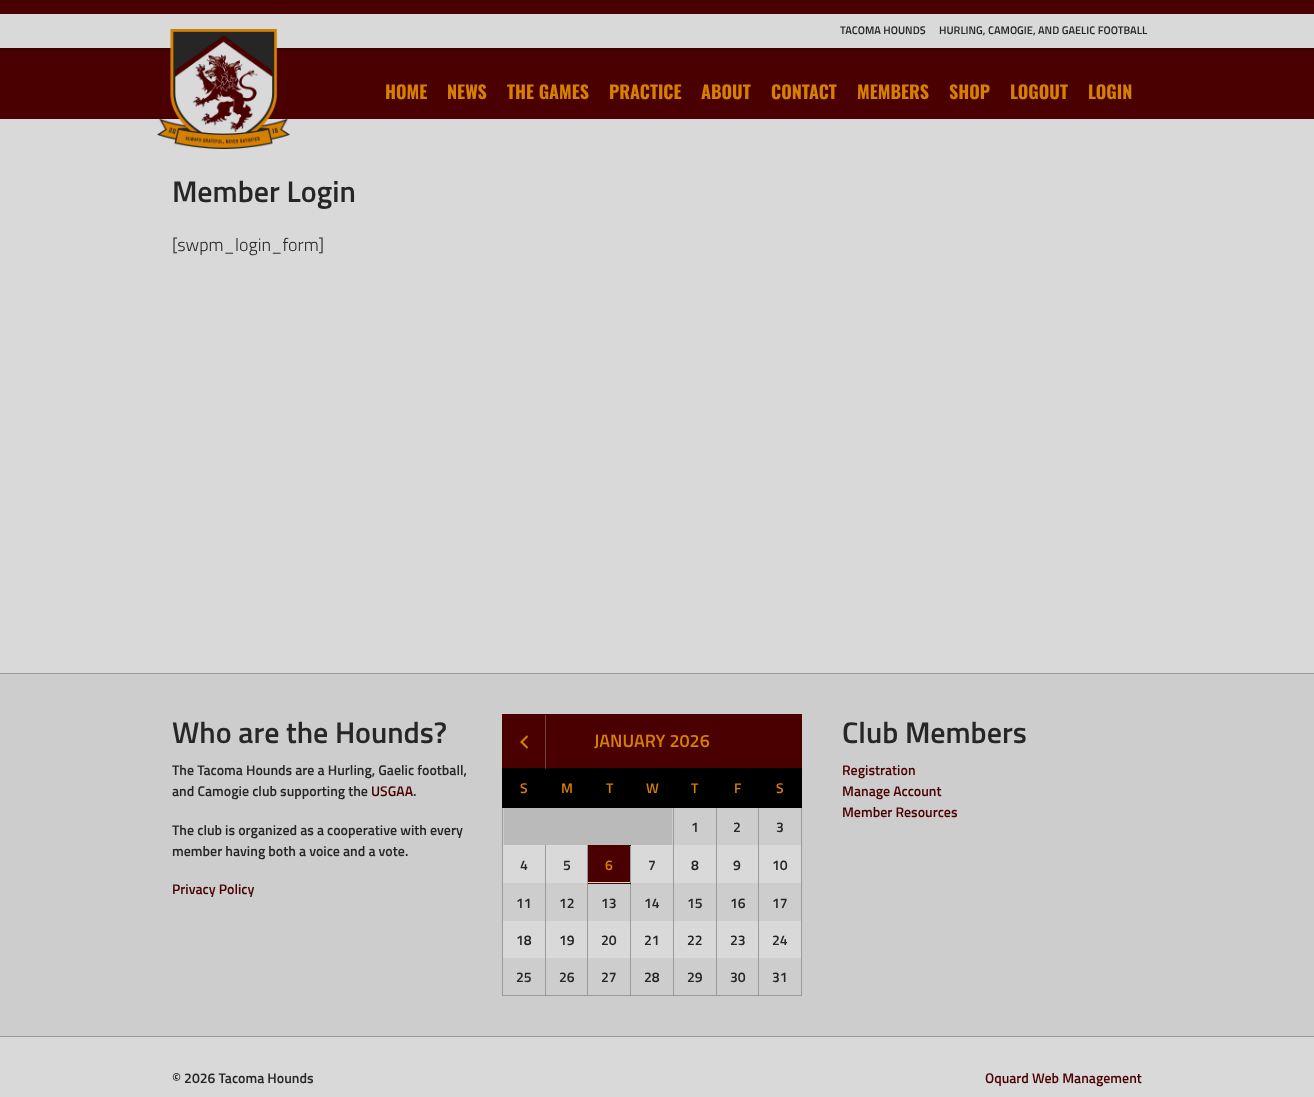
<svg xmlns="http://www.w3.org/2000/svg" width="1314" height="1097">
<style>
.a{font:600 11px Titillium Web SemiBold;fill:#262626}
.b{font:bold 18px Oswald;fill:#d68000}
.c{font:600 30px Titillium Web SemiBold;fill:#262626}
.d{font:300 18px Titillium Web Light;fill:#262626}
.e{font:600 14px Titillium Web SemiBold;fill:#262626}
.f{font:600 14px Titillium Web SemiBold;fill:#4a0000}
.g{font:600 18px Titillium Web SemiBold;fill:#d68000}
.h{font:600 14px Titillium Web SemiBold;fill:#d68000}
</style>
<rect width="100%" height="100%" fill="#d9d9d9"/>
<path fill="#4a0000" d="M0 0h1314v119H0z"/>
<path fill="#00000040" filter="blur(1.5px)" d="M0 16h1314v34H0z"/>
<path fill="#d9d9d9" d="M0 14h1314v34H0z"/>
<image href="1.png" x="157" y="29" width="133" height="120"/>
<path fill="#cdcdcd" d="M0 674h1314v362H0z"/>
<path fill="#9a9a9a" d="M0 673h1314v1H0z"/>
<path fill="#9a9a9a" d="M0 1036h1314v1H0z"/>
<path fill="#d9d9d9" d="M503 845h298v113H503z"/>
<path fill="#9a9a9a" d="M801 846h1v150H801z"/>
<path fill="#9a9a9a" d="M502 995h300v1H502z"/>
<path fill="#9a9a9a" d="M502 846h1v150H502z"/>
<path fill="#000" d="M502 807h300v1H502z"/>
<path fill="#9a9a9a" d="M502 807h1v39H502z"/>
<path fill="#000" d="M502 767h1v41H502z"/>
<path fill="#000" d="M503 768h298v39H503z"/>
<path fill="#cdcdcd" d="M503 883h298v38H503z"/>
<path fill="#9a9a9a" d="M673 807h1v189H673z"/>
<path fill="#000" d="M673 767h1v41H673z"/>
<path fill="#9a9a9a" d="M716 807h1v189H716z"/>
<path fill="#000" d="M716 767h1v41H716z"/>
<path fill="#9a9a9a" d="M801 807h1v39H801z"/>
<path fill="#000" d="M801 767h1v41H801z"/>
<path fill="#9a9a9a" d="M758 807h1v189H758z"/>
<path fill="#000" d="M758 767h1v41H758z"/>
<path fill="#4a0000" d="M502 714h300v54H502z"/>
<image href="2.png" x="520" y="735" width="8" height="14"/>
<path fill="#774040" d="M545 715h1v53H545z"/>
<path fill="#404040" d="M545 768h1v1H545z"/>
<path fill="#bababa" d="M504 808h168v37H504z"/>
<path fill="#9a9a9a" d="M630 845h1v151H630z"/>
<path fill="#4a0000" d="M587 845h44v1H587z"/>
<path fill="#9a9a9a" d="M587 883h1v113H587z"/>
<path fill="#4a0000" d="M587 883h44v1H587z"/>
<path fill="#9a9a9a" d="M587 845h1v39H587z"/>
<path fill="#4a0000" d="M588 846h42v36H588z"/>
<path fill="#9a9a9a" d="M545 845h1v151H545z"/>
<text class="a" x="840" y="34">TACOMA HOUNDS</text>
<text class="a" x="939" y="34">HURLING, CAMOGIE, AND GAELIC FOOTBALL</text>
<text class="b" x="385" y="99">HOME</text>
<text class="b" x="447" y="99">NEWS</text>
<text class="b" x="507" y="99">THE GAMES</text>
<text class="b" x="609" y="99">PRACTICE</text>
<text class="b" x="701" y="99">ABOUT</text>
<text class="b" x="771" y="99">CONTACT</text>
<text class="b" x="857" y="99">MEMBERS</text>
<text class="b" x="949" y="99">SHOP</text>
<text class="b" x="1010" y="99">LOGOUT</text>
<text class="b" x="1088" y="99">LOGIN</text>
<text class="c" x="172" y="202">Member Login</text>
<text class="d" x="172" y="251">[swpm_login_form]</text>
<text class="c" x="172" y="743">Who are the Hounds?</text>
<text class="e" x="172" y="775">The Tacoma Hounds are a Hurling, Gaelic football,</text>
<text class="e" x="172" y="796">and Camogie club supporting the</text>
<text class="f" x="371" y="796">USGAA</text>
<text class="e" x="413" y="796">.</text>
<text class="e" x="172" y="835">The club is organized as a cooperative with every</text>
<text class="e" x="172" y="856">member having both a voice and a vote.</text>
<text class="f" x="172" y="894">Privacy Policy</text>
<text class="g" x="594" y="747">JANUARY 2026</text>
<text class="h" x="520" y="793">S</text>
<text class="h" x="561" y="793">M</text>
<text class="h" x="606" y="793">T</text>
<text class="h" x="646" y="793">W</text>
<text class="h" x="691" y="793">T</text>
<text class="h" x="734" y="793">F</text>
<text class="h" x="776" y="793">S</text>
<text class="e" x="691" y="832">1</text>
<text class="e" x="733" y="832">2</text>
<text class="e" x="776" y="832">3</text>
<text class="e" x="520" y="870">4</text>
<text class="e" x="563" y="870">5</text>
<text class="h" x="605" y="870">6</text>
<text class="e" x="648" y="870">7</text>
<text class="e" x="691" y="870">8</text>
<text class="e" x="733" y="870">9</text>
<text class="e" x="772" y="870">10</text>
<text class="e" x="516" y="908">11</text>
<text class="e" x="559" y="908">12</text>
<text class="e" x="601" y="908">13</text>
<text class="e" x="644" y="908">14</text>
<text class="e" x="687" y="908">15</text>
<text class="e" x="730" y="908">16</text>
<text class="e" x="772" y="908">17</text>
<text class="e" x="516" y="945">18</text>
<text class="e" x="559" y="945">19</text>
<text class="e" x="601" y="945">20</text>
<text class="e" x="644" y="945">21</text>
<text class="e" x="687" y="945">22</text>
<text class="e" x="730" y="945">23</text>
<text class="e" x="772" y="945">24</text>
<text class="e" x="516" y="982">25</text>
<text class="e" x="559" y="982">26</text>
<text class="e" x="601" y="982">27</text>
<text class="e" x="644" y="982">28</text>
<text class="e" x="687" y="982">29</text>
<text class="e" x="730" y="982">30</text>
<text class="e" x="772" y="982">31</text>
<text class="c" x="842" y="743">Club Members</text>
<text class="f" x="842" y="775">Registration</text>
<text class="f" x="842" y="796">Manage Account</text>
<text class="f" x="842" y="817">Member Resources</text>
<text class="e" x="172" y="1083">© 2026 Tacoma Hounds</text>
<text class="f" x="985" y="1083">Oquard Web Management</text>
</svg>
